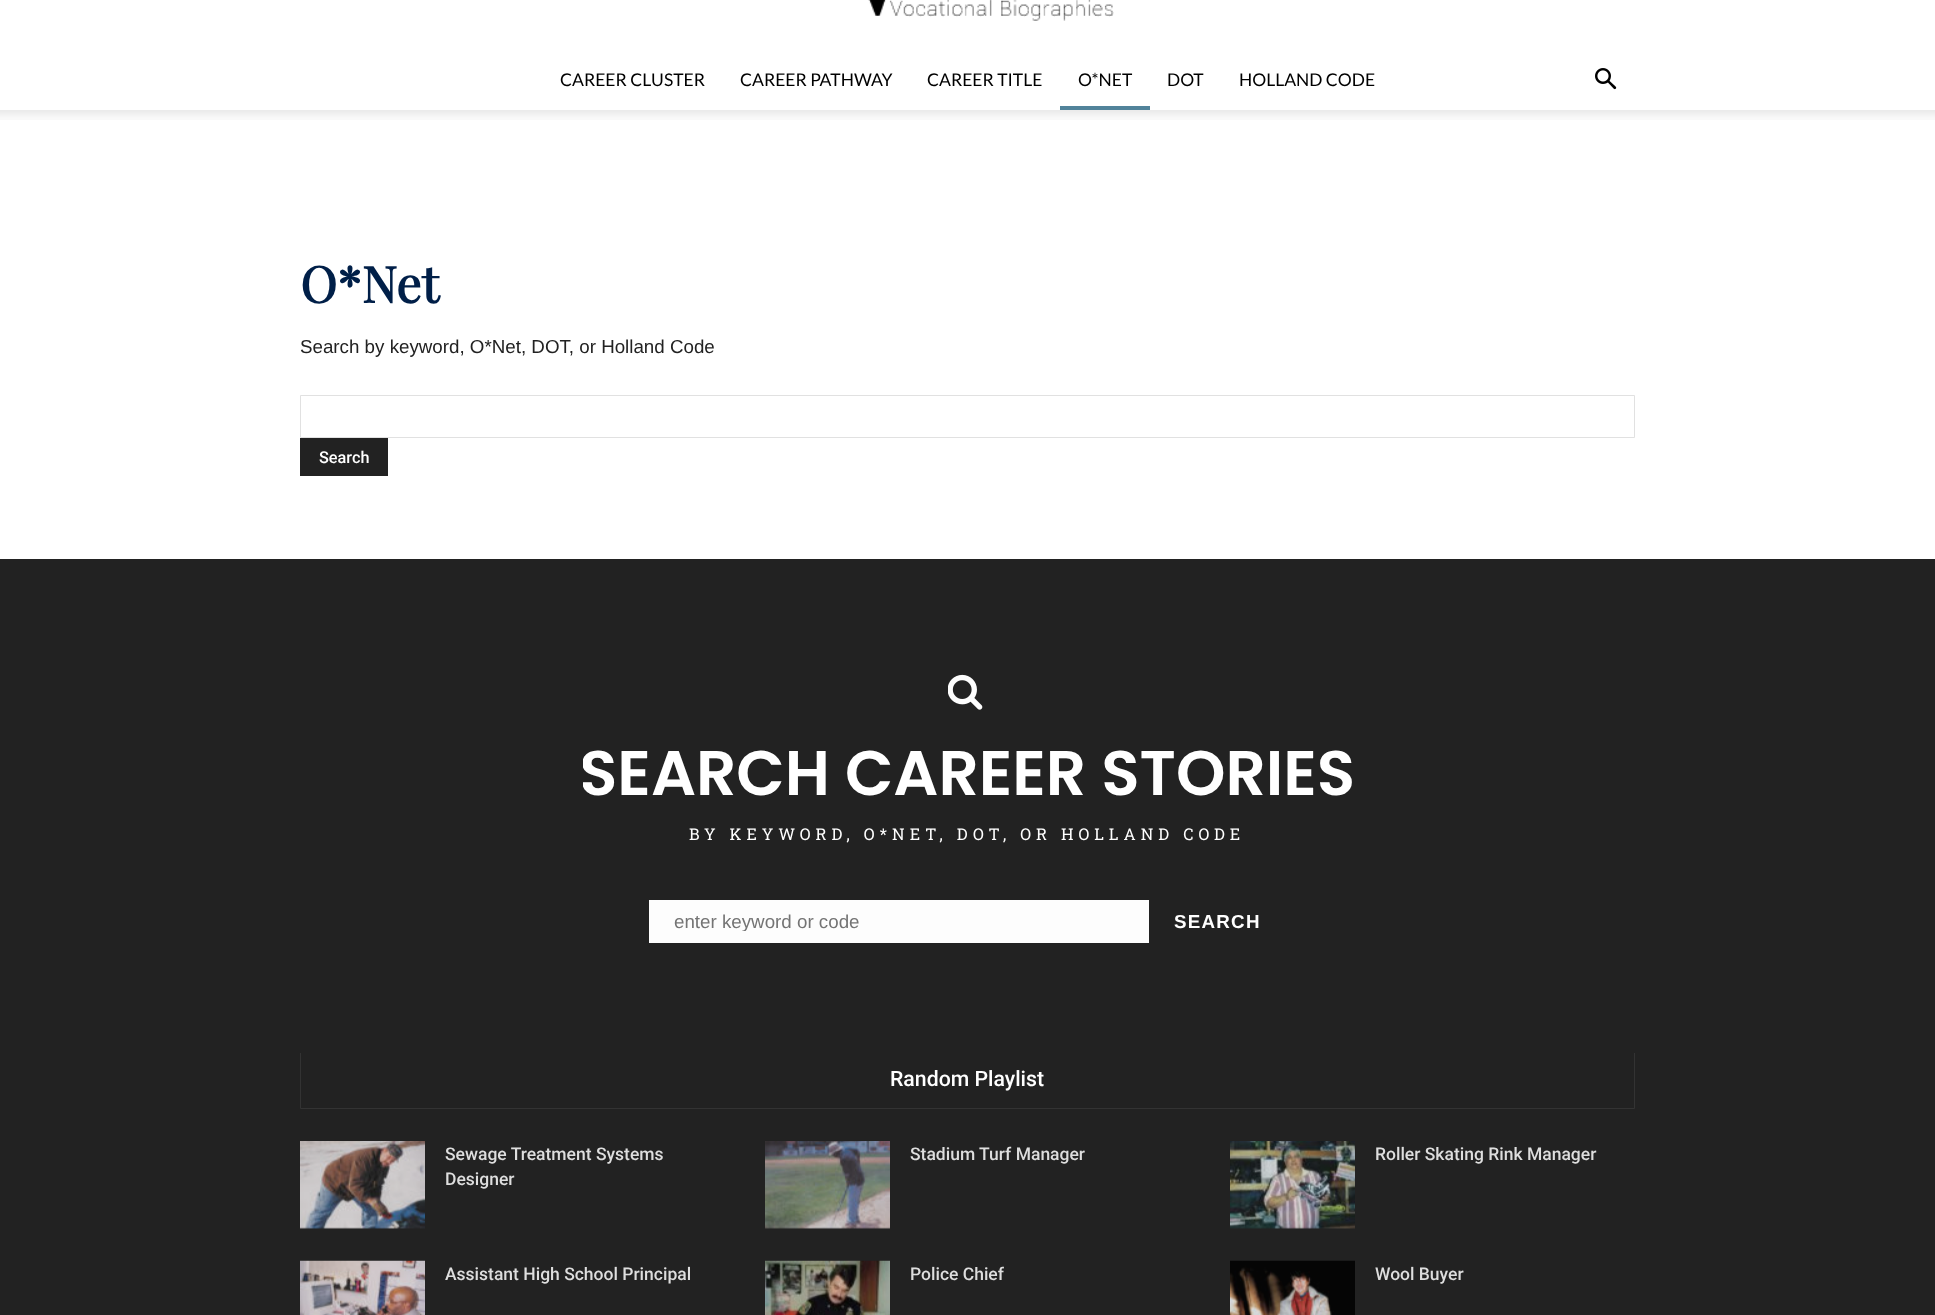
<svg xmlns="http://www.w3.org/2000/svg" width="1935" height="1315">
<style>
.a{font:17.5px Lato;fill:#000}
.b{font:bold 50px Playfair Display;fill:#001f48}
.c{font:18.75px Liberation Sans;fill:#222}
.d{font:500 16.25px Roboto;fill:#fff}
.e{font:600 63px Poppins;fill:#fff}
.f{font:16.25px Roboto Slab;letter-spacing:5px;fill:#fff}
.g{font:18.75px Liberation Sans;fill:#747474}
.h{font:bold 18.75px Liberation Sans;letter-spacing:1.25px;fill:#fff}
.i{font:500 21.25px Roboto;fill:#fff}
.j{font:500 17.5px Roboto;fill:#dedede}
</style>
<defs>
<clipPath id="clip1"><path d="M583 730h770v88H583z"/></clipPath>
<clipPath id="clip2"><path d="M674 910h450v21H674z"/></clipPath>
</defs>
<rect width="100%" height="100%" fill="#fff"/>
<image href="1.png" x="868" y="0" width="246" height="21"/>
<path fill="#51839a" d="M1060 106h90v4H1060z"/>
<image href="2.png" x="1595" y="68" width="22" height="22"/>
<image href="3.png" x="0" y="110" width="1935" height="10"/>
<path fill="none" stroke="#e1e1e1" d="M300.5 395.5h1334v42H300.5z"/>
<path fill="#222" d="M300 438h88v38H300z"/>
<path fill="#222" d="M0 559h1935v756H0z"/>
<image href="4.png" x="948" y="674" width="35" height="36"/>
<path fill="#fdfdfd" d="M649 900h500v43H649z"/>
<path fill="none" stroke="#333" d="M300.5 1050.5h1334v58H300.5z"/>
<path fill="#222" d="M300 1050h1335v3H300z"/>
<image href="5.png" x="300" y="1141" width="125" height="88"/>
<image href="6.png" x="765" y="1141" width="125" height="88"/>
<image href="7.png" x="1230" y="1141" width="125" height="88"/>
<image href="8.png" x="300" y="1260" width="125" height="55"/>
<image href="9.png" x="765" y="1260" width="125" height="55"/>
<image href="10.png" x="1230" y="1260" width="125" height="55"/>
<text class="a" x="560" y="86">CAREER CLUSTER</text>
<text class="a" x="740" y="86">CAREER PATHWAY</text>
<text class="a" x="927" y="86">CAREER TITLE</text>
<text class="a" x="1078" y="86">O*NET</text>
<text class="a" x="1167" y="86">DOT</text>
<text class="a" x="1239" y="86">HOLLAND CODE</text>
<text class="b" x="300" y="303">O*Net</text>
<text class="c" x="300" y="353">Search by keyword, O*Net, DOT, or Holland Code</text>
<text class="d" x="319" y="463">Search</text>
<g clip-path="url(#clip1)">
<text class="e" x="579" y="795">SEARCH CAREER STORIES</text>
</g>
<text class="f" x="689" y="840">BY KEYWORD, O*NET, DOT, OR HOLLAND CODE</text>
<g clip-path="url(#clip2)">
<text class="g" x="674" y="928">enter keyword or code</text>
</g>
<text class="h" x="1174" y="928">SEARCH</text>
<text class="i" x="890" y="1086">Random Playlist</text>
<text class="j" x="445" y="1160">Sewage Treatment Systems</text>
<text class="j" x="445" y="1185">Designer</text>
<text class="j" x="910" y="1160">Stadium Turf Manager</text>
<text class="j" x="1375" y="1160">Roller Skating Rink Manager</text>
<text class="j" x="445" y="1280">Assistant High School Principal</text>
<text class="j" x="910" y="1280">Police Chief</text>
<text class="j" x="1375" y="1280">Wool Buyer</text>
</svg>
